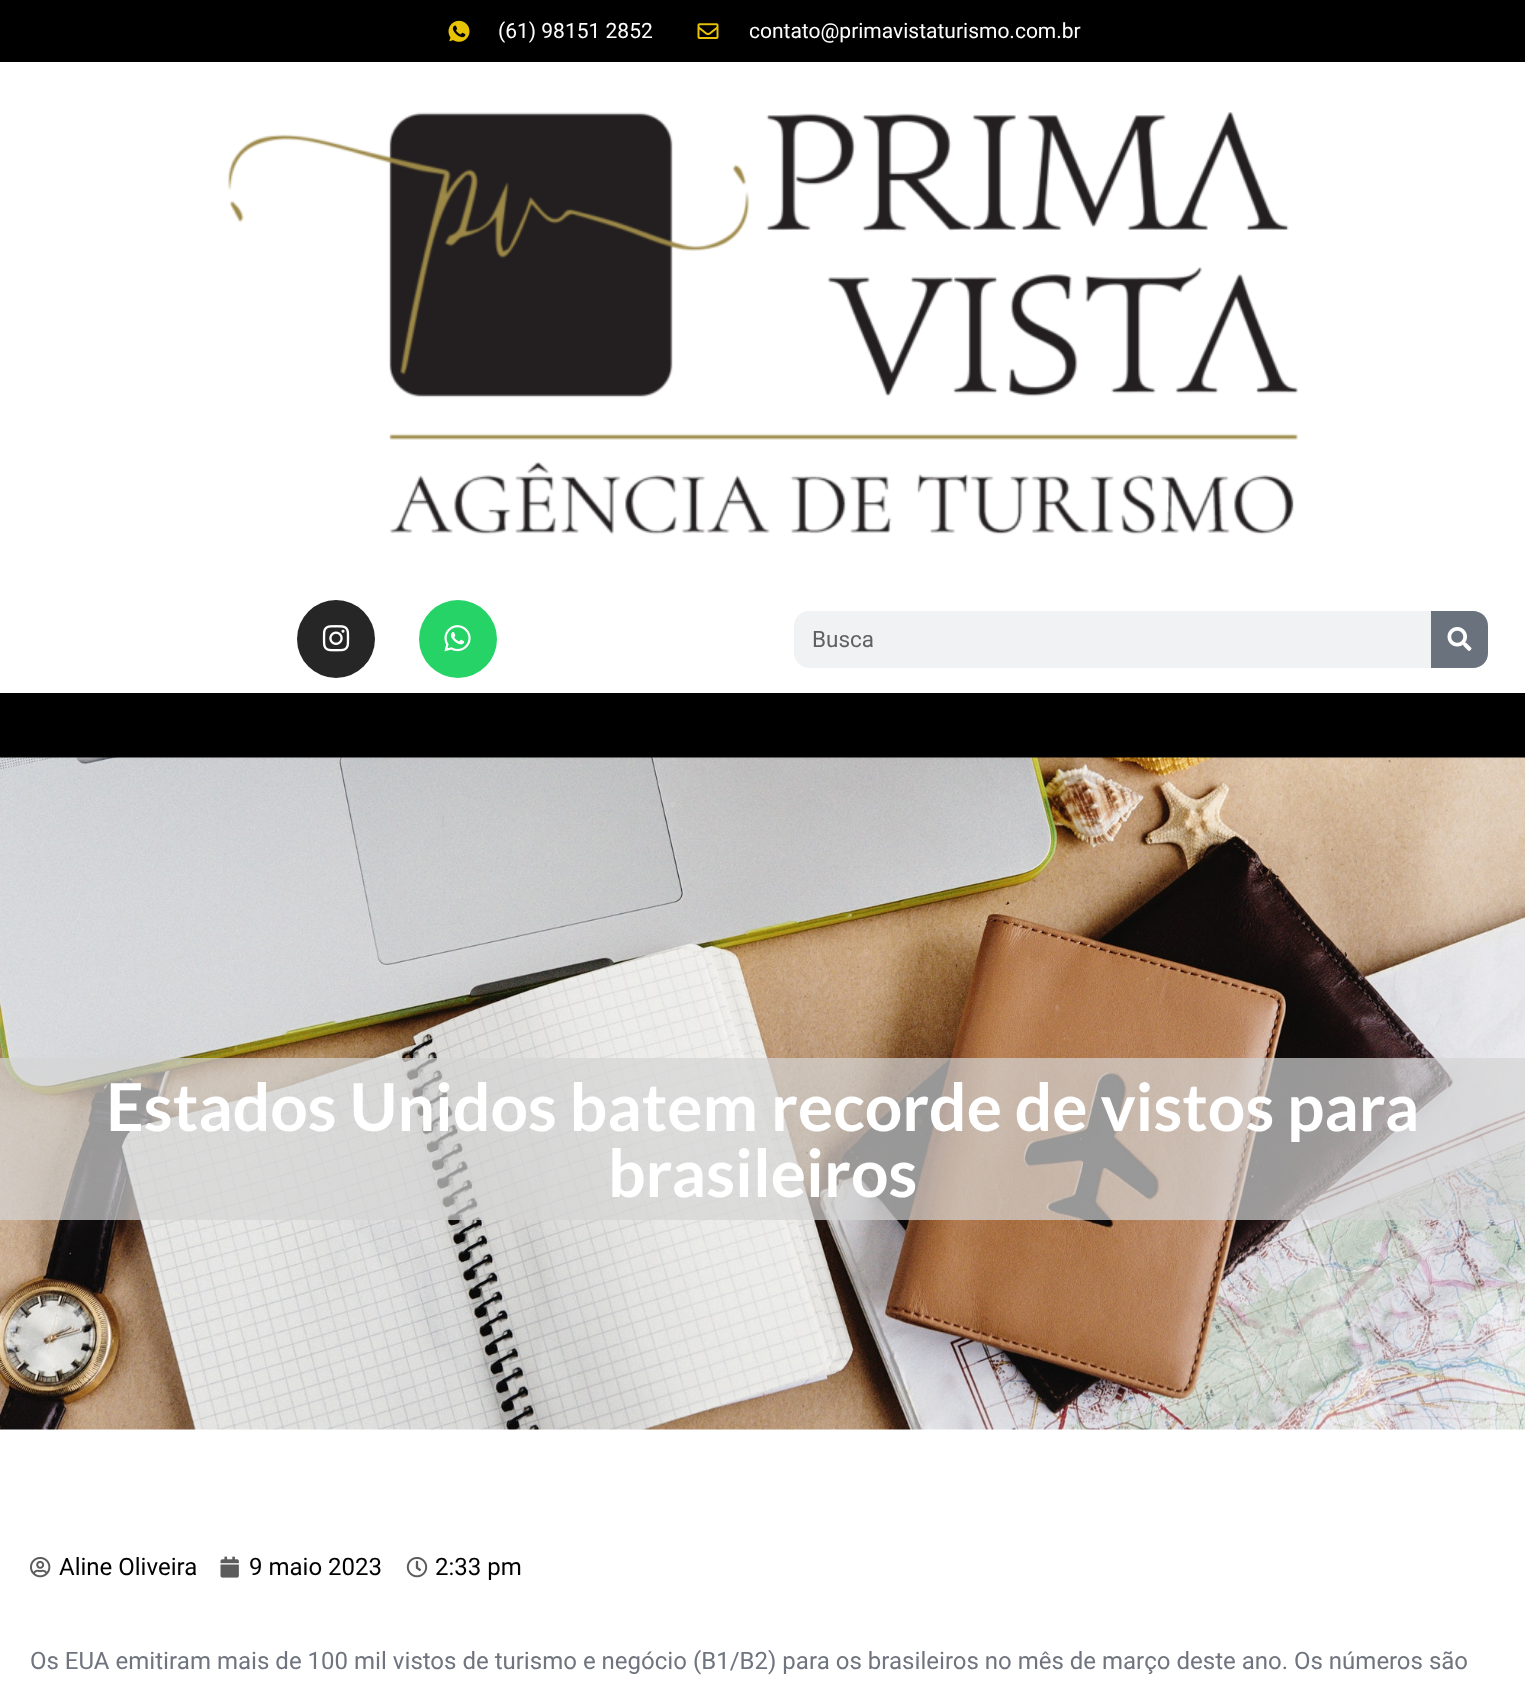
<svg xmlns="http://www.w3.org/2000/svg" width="1525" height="1689">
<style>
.a{font:21px Roboto;fill:#fff}
.b{font:22.5px Roboto;fill:#606161}
.c{font:bold 66px Lato;fill:#fff}
.d{font:24px Roboto;fill:#000}
.e{font:24px Heebo;fill:#6f747e}
</style>
<rect width="100%" height="100%" fill="#fff"/>
<path fill="#000" d="M0 0h1525v62H0z"/>
<image href="1.png" x="448" y="20" width="22" height="22"/>
<image href="2.png" x="697" y="23" width="22" height="16"/>
<image href="3.png" x="227" y="112" width="1071" height="423"/>
<circle fill="#262626" cx="336" cy="639" r="39"/>
<image href="4.png" x="322" y="625" width="28" height="27"/>
<circle fill="#25d366" cx="458" cy="639" r="39"/>
<image href="5.png" x="444" y="625" width="27" height="27"/>
<rect fill="#f1f2f3" x="794" y="611" width="694" height="57" rx="15"/>
<path fill="#69727d" d="M1431 611h42c8.5 0 15 6.5 15 15v27c0 8.5-6.5 15-15 15h-42z"/>
<image href="6.png" x="1447" y="627" width="25" height="24"/>
<path fill="#000" d="M0 693h1525v65H0z"/>
<image href="7.png" x="0" y="757" width="1525" height="673"/>
<path fill="#d4d4d4b3" d="M0 1058h1525v162H0z"/>
<image href="8.png" x="30" y="1557" width="21" height="21"/>
<image href="9.png" x="220" y="1556" width="19" height="22"/>
<image href="10.png" x="406" y="1557" width="22" height="21"/>
<text class="a" x="498" y="38">(61) 98151 2852</text>
<text class="a" x="749" y="38">contato@primavistaturismo.com.br</text>
<text class="b" x="812" y="647">Busca</text>
<text class="c" x="106" y="1131">Estados Unidos batem recorde de vistos para</text>
<text class="c" x="608" y="1197">brasileiros</text>
<text class="d" x="59" y="1575">Aline Oliveira</text>
<text class="d" x="249" y="1575">9 maio 2023</text>
<text class="d" x="435" y="1575">2:33 pm</text>
<text class="e" x="30" y="1669">Os EUA emitiram mais de 100 mil vistos de turismo e negócio (B1/B2) para os brasileiros no mês de março deste ano. Os números são</text>
</svg>
